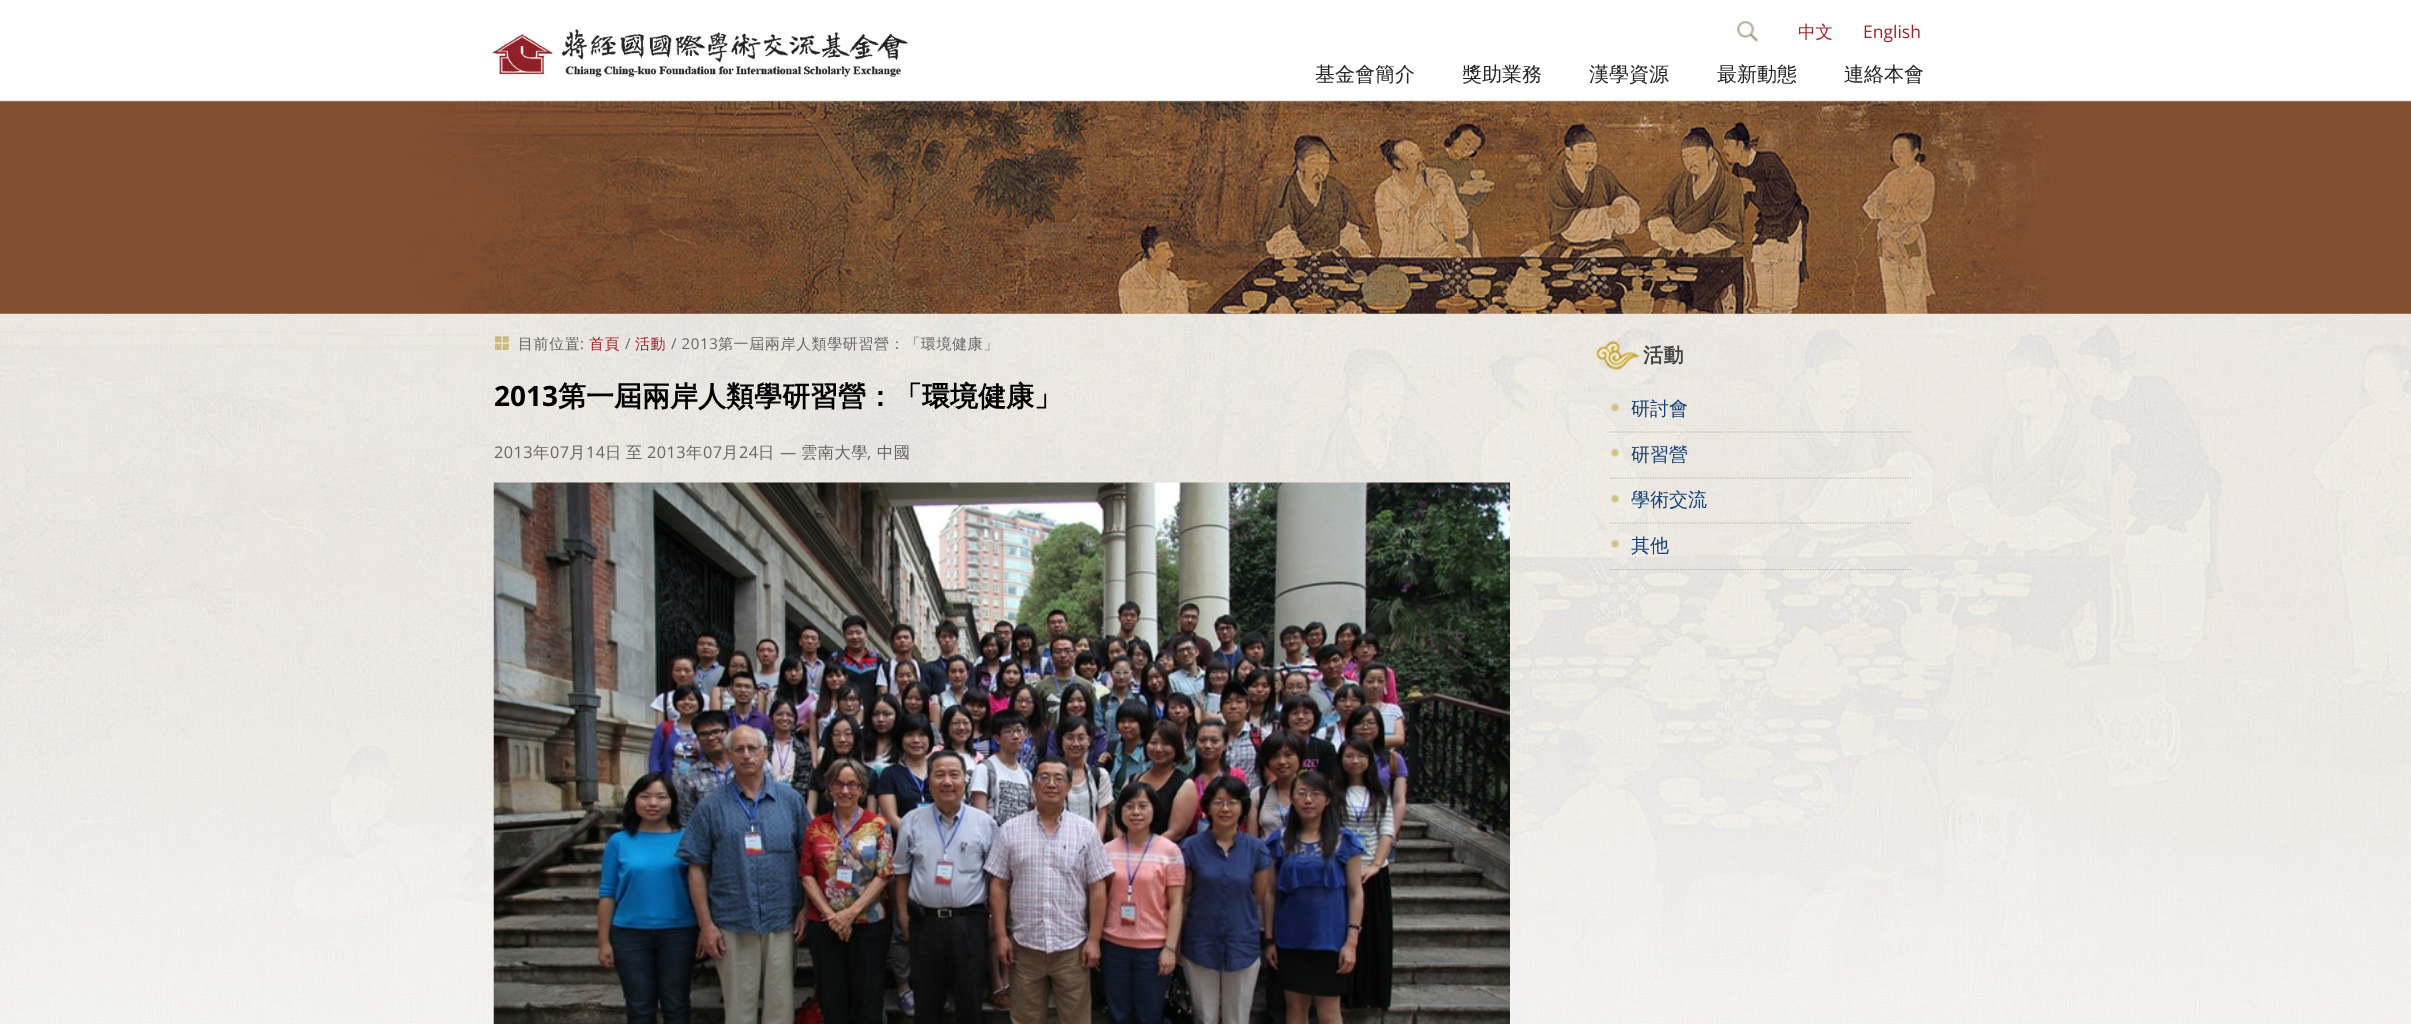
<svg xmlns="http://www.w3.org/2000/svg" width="2411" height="1024">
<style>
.a{font:500 17.5px WenQuanYi Zen Hei;fill:#9d242b}
.b{font:17.5px Open Sans;fill:#9d242b}
.c{font:500 20px WenQuanYi Zen Hei;fill:#222}
.d{font:500 15px WenQuanYi Zen Hei;letter-spacing:0.6px;fill:#666}
.e{font:15px Open Sans;letter-spacing:0.6px;fill:#666}
.f{font:500 15px WenQuanYi Zen Hei;letter-spacing:0.6px;fill:#9d242b}
.g{font:bold 28px Open Sans;fill:#000}
.h{font:bold 28px WenQuanYi Zen Hei;fill:#000}
.i{font:16.25px Open Sans;letter-spacing:0.5px;fill:#666}
.j{font:500 16.25px WenQuanYi Zen Hei;letter-spacing:0.5px;fill:#666}
.k{font:bold 20px WenQuanYi Zen Hei;letter-spacing:0.5px;fill:#444}
.l{font:500 19px WenQuanYi Zen Hei;fill:#124075}
</style>
<rect width="100%" height="100%" fill="#fff"/>
<image href="1.png" x="0" y="0" width="2411" height="1024"/>
<path fill="#fffffff2" d="M0 0h2411v100H0z"/>
<path fill="#e6e6e6" d="M0 100h2411v1H0z"/>
<image href="2.png" x="492" y="29" width="416" height="48"/>
<image href="3.png" x="1737" y="21" width="22" height="22"/>
<image href="4.png" x="0" y="101" width="2411" height="213"/>
<image href="5.png" x="495" y="336" width="14" height="14"/>
<image href="6.png" x="493" y="482" width="1017" height="542"/>
<image href="7.png" x="1596" y="340" width="44" height="31"/>
<image href="8.png" x="1611" y="403" width="8" height="9"/>
<path fill="none" stroke="#b6b3a7" stroke-width="1.2" stroke-dasharray="1.25 1.25" d="M1610 432h301"/>
<image href="9.png" x="1611" y="448" width="8" height="9"/>
<path fill="none" stroke="#b6b3a7" stroke-width="1.2" stroke-dasharray="1.25 1.25" d="M1610 478h301"/>
<image href="10.png" x="1611" y="494" width="8" height="9"/>
<path fill="none" stroke="#b6b3a7" stroke-width="1.2" stroke-dasharray="1.25 1.25" d="M1610 523h301"/>
<image href="11.png" x="1611" y="539" width="8" height="9"/>
<path fill="none" stroke="#b6b3a7" stroke-width="1.2" stroke-dasharray="1.25 1.25" d="M1610 569.5h301"/>
<text class="a" x="1798" y="38">中文</text>
<text class="b" x="1863" y="38">English</text>
<text class="c" x="1315" y="81">基金會簡介</text>
<text class="c" x="1462" y="81">獎助業務</text>
<text class="c" x="1589" y="81">漢學資源</text>
<text class="c" x="1717" y="81">最新動態</text>
<text class="c" x="1844" y="81">連絡本會</text>
<text class="d" x="518" y="349">目前位置</text>
<text class="e" x="580" y="349">:</text>
<text class="f" x="589" y="349">首頁</text>
<text class="e" x="625" y="349">/</text>
<text class="f" x="635" y="349">活動</text>
<text class="e" x="671" y="349">/ 2013</text>
<text class="d" x="718" y="349">第一屆兩岸人類學研習營：「環境健康」</text>
<text class="g" x="494" y="406">2013</text>
<text class="h" x="558" y="406">第一屆兩岸人類學研習營：「環境健康」</text>
<text class="i" x="494" y="458">2013</text>
<text class="j" x="533" y="458">年</text>
<text class="i" x="550" y="458">07</text>
<text class="j" x="569" y="458">月</text>
<text class="i" x="586" y="458">14</text>
<text class="j" x="605" y="458">日</text>
<text class="j" x="626" y="458">至</text>
<text class="i" x="647" y="458">2013</text>
<text class="j" x="686" y="458">年</text>
<text class="i" x="703" y="458">07</text>
<text class="j" x="722" y="458">月</text>
<text class="i" x="739" y="458">24</text>
<text class="j" x="758" y="458">日</text>
<text class="i" x="780" y="458">—</text>
<text class="j" x="801" y="458">雲南大學</text>
<text class="j" x="877" y="458">中國</text>
<text class="i" x="867" y="458">,</text>
<text class="k" x="1643" y="362">活動</text>
<text class="l" x="1631" y="415">研討會</text>
<text class="l" x="1631" y="461">研習營</text>
<text class="l" x="1631" y="506">學術交流</text>
<text class="l" x="1631" y="552">其他</text>
</svg>
